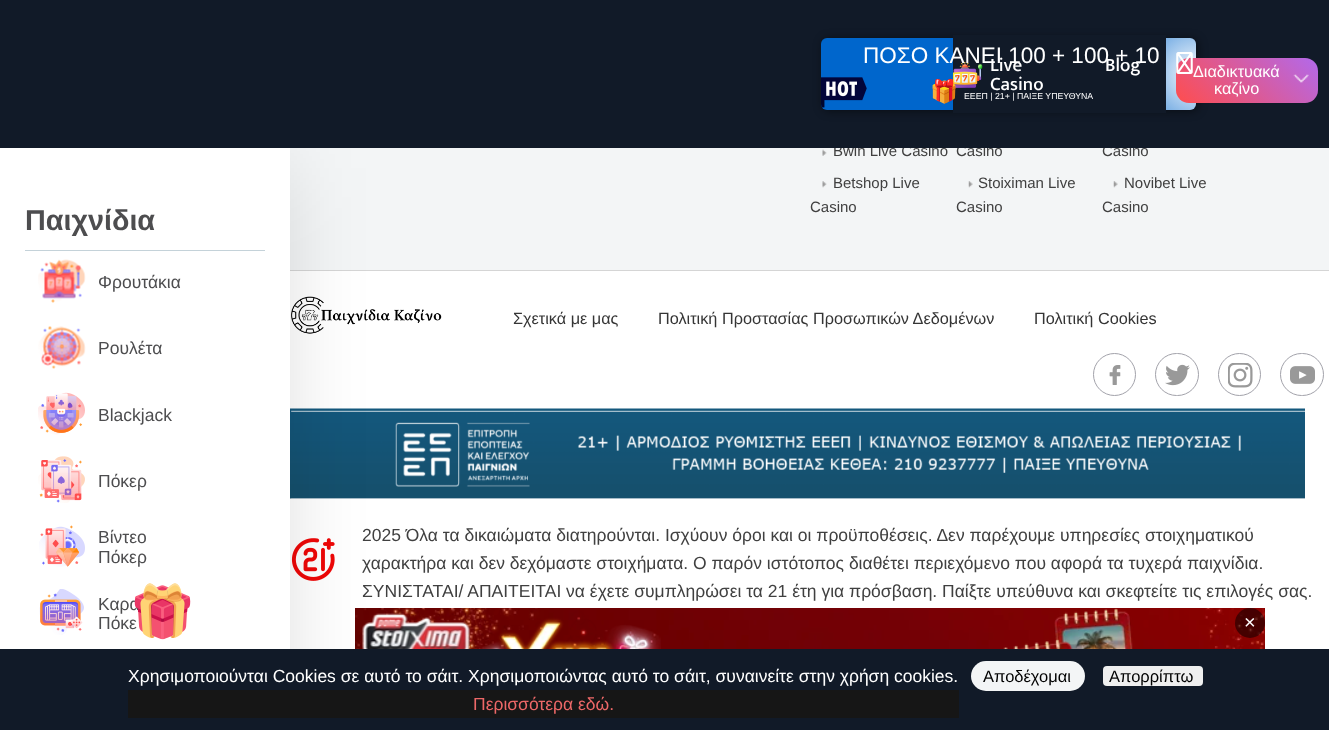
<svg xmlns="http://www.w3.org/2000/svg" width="1329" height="730">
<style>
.a{font:bold 28.75px Liberation Sans;fill:#4d4d4f}
.b{font:17.5px Liberation Sans;fill:#4d4d4f}
.c{font:15px Liberation Sans;fill:#404040}
.d{font:16.25px Liberation Sans;fill:#fff}
.e{font:8.75px Liberation Sans;fill:#fff}
.f{font:22.5px Noto Color Emoji;fill:#fff}
.g{font:500 19px Ek Mukta;fill:#fff}
.h{font:22.5px Liberation Sans;fill:#fff}
.i{font:16.25px Liberation Sans;fill:#353535}
.j{font:17.5px Liberation Sans;fill:#404040}
.k{font:20px Liberation Sans;fill:#fff}
.l{font:17.5px Liberation Sans;fill:#fff}
.m{font:17.5px Liberation Sans;fill:#ed6868}
.n{font:16.5px Liberation Sans;fill:#000}
</style>
<defs>
<radialGradient id="g1" gradientUnits="userSpaceOnUse" cx="1196" cy="74" r="377"><stop offset="0" stop-color="#fff"/><stop offset="0.24" stop-color="#06c"/><stop offset="0.52" stop-color="#06c"/></radialGradient>
<linearGradient id="g2" gradientUnits="userSpaceOnUse" x1="1200" y1="127" x2="1293" y2="33"><stop offset="0" stop-color="#ff4d4d"/><stop offset="1" stop-color="#b269ec"/></linearGradient>
</defs>
<rect width="100%" height="100%" fill="#f3f5f6"/>
<path fill="#fff" d="M290 271h1039v378H290z"/>
<path fill="#d5d5d5" d="M290 270h1039v1H290z"/>
<image href="14.png" x="291" y="296" width="151" height="38"/>
<image href="19.png" x="290" y="408" width="1015" height="91"/>
<image href="20.png" x="291" y="538" width="44" height="43"/>
<path fill="#00000029" filter="blur(43px)" d="M25 168h253v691H25z"/>
<path fill="#fff" d="M0 148h290v501H0z"/>
<path fill="#c4d2d9" d="M25 250h240v1H25z"/>
<image href="5.png" x="38" y="259" width="48" height="44"/>
<image href="6.png" x="38" y="326" width="48" height="43"/>
<image href="7.png" x="38" y="392" width="47" height="43"/>
<image href="8.png" x="38" y="456" width="47" height="47"/>
<image href="9.png" x="39" y="525" width="46" height="42"/>
<image href="10.png" x="39" y="589" width="45" height="46"/>
<image href="11.png" x="822" y="149" width="5" height="7"/>
<image href="12.png" x="822" y="181" width="5" height="7"/>
<image href="13.png" x="968" y="181" width="5" height="7"/>
<image href="13.png" x="1113" y="181" width="5" height="7"/>
<circle fill="none" stroke="#a2a2aa" cx="1114.5" cy="374.5" r="21"/>
<image href="15.png" x="1109" y="365" width="12" height="20"/>
<rect fill="none" stroke="#a2a2aa" x="1155.5" y="353.5" width="43" height="42" rx="21"/>
<image href="16.png" x="1165" y="364" width="25" height="22"/>
<circle fill="none" stroke="#a2a2aa" cx="1239.5" cy="374.5" r="21"/>
<image href="17.png" x="1228" y="363" width="25" height="25"/>
<rect fill="none" stroke="#a2a2aa" x="1280.5" y="353.5" width="43" height="42" rx="21"/>
<image href="18.png" x="1290" y="366" width="25" height="18"/>
<image href="21.png" x="355" y="608" width="910" height="41"/>
<circle fill="#00000080" cx="1250" cy="623" r="15"/>
<path fill="#111a28" d="M0 649h1329v81H0z"/>
<path fill="#161616" d="M128 690h831v28H128z"/>
<rect fill="#f3f5f6" x="971" y="661" width="114" height="30" rx="15"/>
<rect fill="#efefef" x="1103" y="666" width="100" height="20" rx="4"/>
<text class="a" x="25" y="230">Παιχνίδια</text>
<text class="b" x="98" y="288">Φρουτάκια</text>
<text class="b" x="98" y="354">Ρουλέτα</text>
<text class="b" x="98" y="421">Blackjack</text>
<text class="b" x="98" y="487">Πόκερ</text>
<text class="b" x="98" y="543">Βίντεο</text>
<text class="b" x="98" y="563">Πόκερ</text>
<text class="b" x="98" y="610">Καρα</text>
<text class="b" x="98" y="629">Πόκε</text>
<text class="c" x="833" y="156">Bwin Live Casino</text>
<text class="c" x="956" y="156">Casino</text>
<text class="c" x="1102" y="156">Casino</text>
<path fill="#111a28" d="M0 0h1329v148H0z"/>
<rect fill="#00000080" filter="blur(5px)" x="823" y="39" width="375" height="72" rx="6"/>
<rect fill="url(#g1)" x="821" y="38" width="375" height="72" rx="6"/>
<rect fill="url(#g2)" x="1176" y="58" width="142" height="45" rx="13"/>
<image href="2.png" x="1176" y="52" width="17" height="22"/>
<image href="4.png" x="1293" y="74" width="16" height="9"/>
<text class="d" x="1214" y="94">καζίνο</text>
<text class="d" x="1193" y="77">Διαδικτυακά</text>
<path fill="#111a28" d="M953 35h213v78H953z"/>
<text class="e" x="964" y="99">ΕΕΕΠ | 21+ | ΠΑΙΞΕ ΥΠΕΥΘΥΝΑ</text>
<image href="3.png" x="953" y="61" width="30" height="27"/>
<text class="f" x="930" y="99">🎁</text>
<text class="g" x="1105" y="71">Blog</text>
<text class="g" x="990" y="71">Live</text>
<text class="h" x="863" y="63">ΠΟΣΟ ΚΑΝΕΙ 100 + 100 + 10</text>
<text class="g" x="990" y="90">Casino</text>
<image href="1.png" x="821" y="77" width="46" height="31"/>
<text class="c" x="833" y="188">Betshop Live</text>
<text class="c" x="810" y="212">Casino</text>
<text class="c" x="978" y="188">Stoiximan Live</text>
<text class="c" x="956" y="212">Casino</text>
<text class="c" x="1124" y="188">Novibet Live</text>
<text class="c" x="1102" y="212">Casino</text>
<text class="i" x="513" y="324">Σχετικά με μας</text>
<text class="i" x="658" y="324">Πολιτική Προστασίας Προσωπικών Δεδομένων</text>
<text class="i" x="1034" y="324">Πολιτική Cookies</text>
<text class="j" x="362" y="541">2025 Όλα τα δικαιώματα διατηρούνται. Ισχύουν όροι και οι προϋποθέσεις. Δεν παρέχουμε υπηρεσίες στοιχηματικού</text>
<text class="j" x="362" y="569">χαρακτήρα και δεν δεχόμαστε στοιχήματα. Ο παρόν ιστότοπος διαθέτει περιεχόμενο που αφορά τα τυχερά παιχνίδια.</text>
<text class="j" x="362" y="597">ΣΥΝΙΣΤΑΤΑΙ/ ΑΠΑΙΤΕΙΤΑΙ να έχετε συμπληρώσει τα 21 έτη για πρόσβαση. Παίξτε υπεύθυνα και σκεφτείτε τις επιλογές σας.</text>
<text class="k" x="1244" y="629">×</text>
<text class="l" x="128" y="682">Χρησιμοποιούνται Cookies σε αυτό το σάιτ. Χρησιμοποιώντας αυτό το σάιτ, συναινείτε στην χρήση cookies.</text>
<text class="m" x="473" y="710">Περισσότερα εδώ.</text>
<text class="n" x="983" y="682">Αποδέχομαι</text>
<text class="n" x="1109" y="682">Απορρίπτω</text>
<image href="22.png" x="134" y="583" width="57" height="57"/>
</svg>
